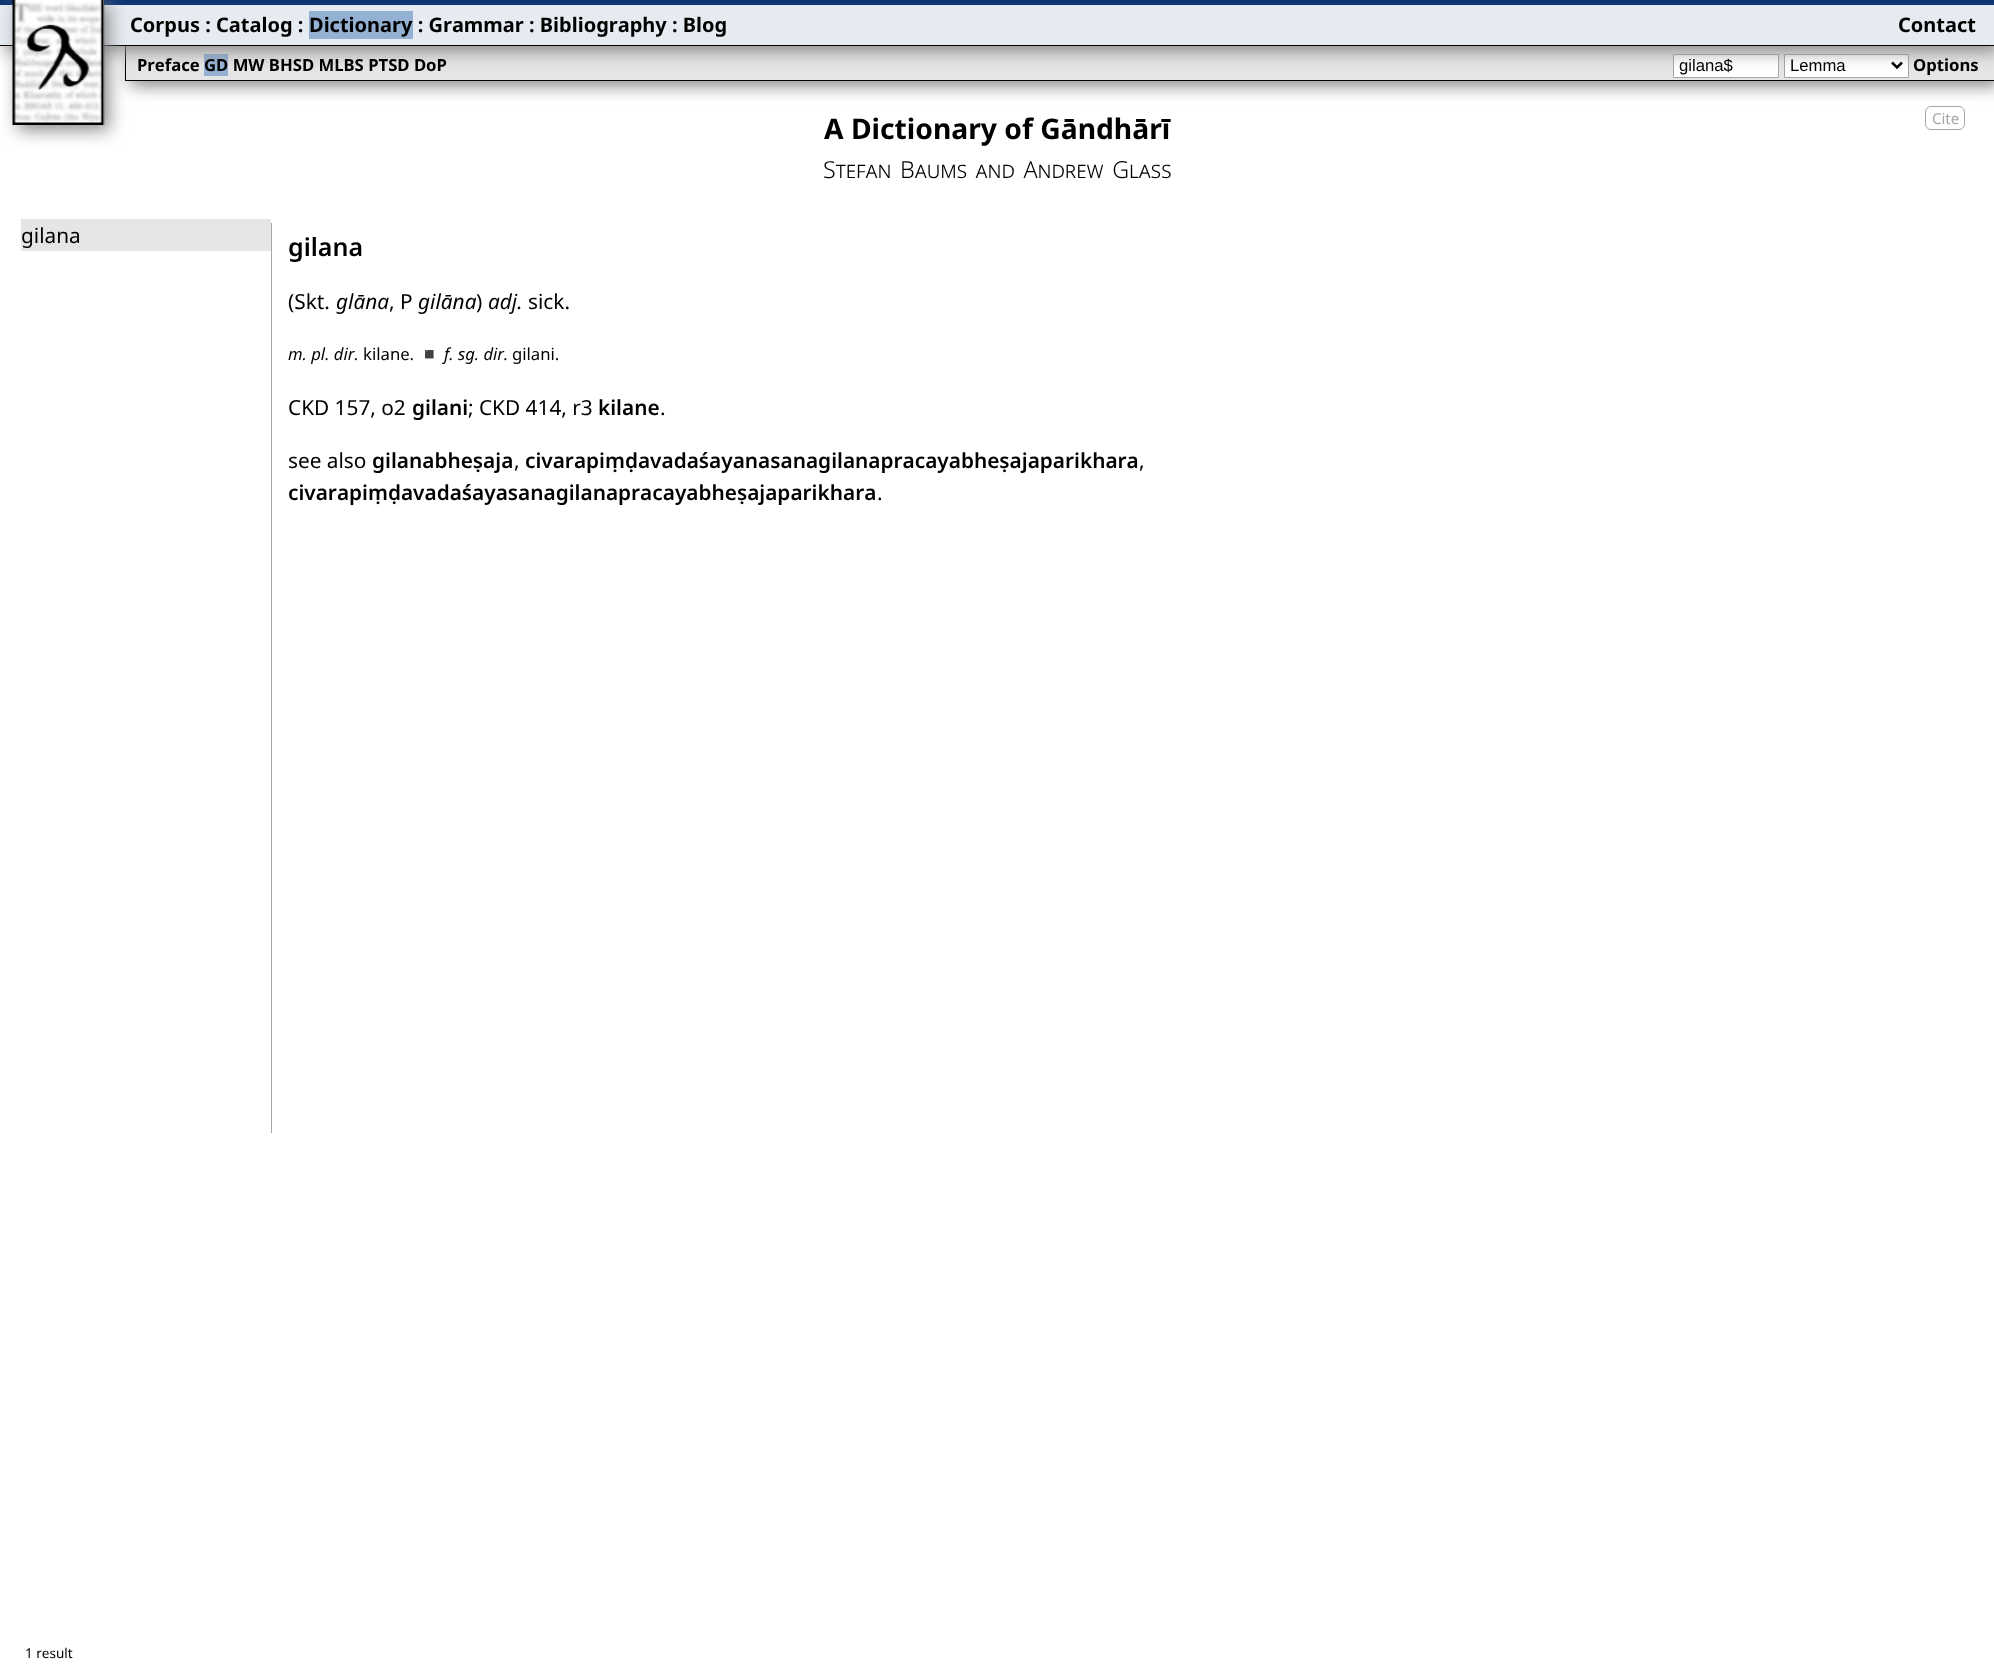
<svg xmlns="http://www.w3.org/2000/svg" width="1994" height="1668">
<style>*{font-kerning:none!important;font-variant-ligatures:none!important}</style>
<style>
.a{font:bold 20px Noto Sans;fill:#000}
.b{font:bold 16.7px Noto Sans;fill:#000}
.c{font:16.7px Liberation Sans;fill:#000}
.d{font:bold 28.25px Noto Sans;fill:#000}
.e{font:15px Noto Sans;fill:#a5a5a5}
.f{font:300 23.3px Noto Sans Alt;fill:#000}
.g{font:20.8px Noto Sans;fill:#000}
.h{font:600 25px Noto Sans;fill:#000}
.i{font:italic 20.8px Noto Sans;fill:#000}
.j{font:italic 16.7px Noto Sans;fill:#000}
.k{font:16.7px Noto Sans;fill:#000}
.l{font:16.7px Noto Color Emoji;fill:#000}
.m{font:600 20.8px Noto Sans;fill:#000}
.n{font:13.5px Noto Sans;fill:#000}
</style>
<rect width="100%" height="100%" fill="#fff"/>
<rect fill="none" stroke="#a5a5a5" x="1925.5" y="106.5" width="39" height="23" rx="5.5"/>
<path fill="#888" filter="blur(8.5px)" d="M130 50h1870v36H130z"/>
<path fill="#e5e5e5" d="M126 46h1868v34H126z"/>
<path fill="#000" d="M125 80h1869v1H125z"/>
<path fill="#000" d="M125 45h1v36H125z"/>
<path fill="#94b1d4" d="M204 54h24v22H204z"/>
<path fill="#fff" stroke="#a5a5a5" d="M1673.5 54.5h105v23H1673.5z"/>
<path fill="#fff" stroke="#a5a5a5" d="M1784.5 54.5h124v23H1784.5z"/>
<path fill="none" stroke="#000" stroke-width="2.5" d="M1892 62.5l5 5l5-5"/>
<path fill="#888" filter="blur(8.5px)" d="M5 5h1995v46H5z"/>
<path fill="#e6ebf1" d="M0 5h1994v40H0z"/>
<path fill="#0d3673" d="M0 0h1994v5H0z"/>
<path fill="#000" d="M0 45h1994v1H0z"/>
<path fill="#888" filter="blur(8.5px)" d="M18 5h91v125H18z"/>
<path fill="#fff" d="M103 0h1v125H103z"/>
<image href="1.png" x="12" y="0" width="93" height="125"/>
<path fill="#94b1d4" d="M309 11h104v28H309z"/>
<path fill="#a5a5a5" d="M271 223h1v910H271z"/>
<path fill="#e5e5e5" d="M21 219h250v32H21z"/>
<text class="a" x="130" y="32">Corpus : Catalog :</text>
<text class="a" x="309" y="32">Dictionary : Grammar : Bibliography : Blog</text>
<text class="a" x="1898" y="32">Contact</text>
<text class="b" x="137" y="71">Preface</text>
<text class="b" x="204" y="71">GD MW BHSD MLBS PTSD DoP</text>
<text class="c" x="1679" y="71">gilana$</text>
<text class="c" x="1790" y="71">Lemma</text>
<text class="b" x="1913" y="71">Options</text>
<text class="d" x="824" y="139">A Dictionary of Gāndhārī</text>
<text class="e" x="1932" y="124">Cite</text>
<text class="f" x="823" y="178" word-spacing="2.5">Stefan Baums and Andrew Glass</text>
<text class="g" x="21" y="243">gilana</text>
<text class="h" x="288" y="256">gilana</text>
<text class="g" x="288" y="309">(Skt.</text>
<text class="i" x="336" y="309">glāna</text>
<text class="g" x="389" y="309">, P</text>
<text class="i" x="418" y="309">gilāna</text>
<text class="g" x="476" y="309">)</text>
<text class="i" x="488" y="309">adj.</text>
<text class="g" x="528" y="309">sick.</text>
<text class="j" x="288" y="360">m. pl. dir.</text>
<text class="k" x="363" y="360">kilane.</text>
<text class="l" x="419" y="360">◾</text>
<text class="j" x="444" y="360">f. sg. dir.</text>
<text class="k" x="512" y="360">gilani.</text>
<text class="g" x="288" y="415">CKD 157, o2</text>
<text class="m" x="412" y="415">gilani</text>
<text class="g" x="468" y="415">; CKD 414, r3</text>
<text class="m" x="598" y="415">kilane</text>
<text class="g" x="660" y="415">.</text>
<text class="g" x="288" y="468">see also</text>
<text class="m" x="372" y="468">gilanabheṣaja</text>
<text class="g" x="514" y="468">,</text>
<text class="m" x="525" y="468">civarapiṃḍavadaśayanasanagilanapracayabheṣajaparikhara</text>
<text class="g" x="1139" y="468">,</text>
<text class="m" x="288" y="500">civarapiṃḍavadaśayasanagilanapracayabheṣajaparikhara</text>
<text class="g" x="877" y="500">.</text>
<text class="n" x="25" y="1658">1 result</text>
</svg>
